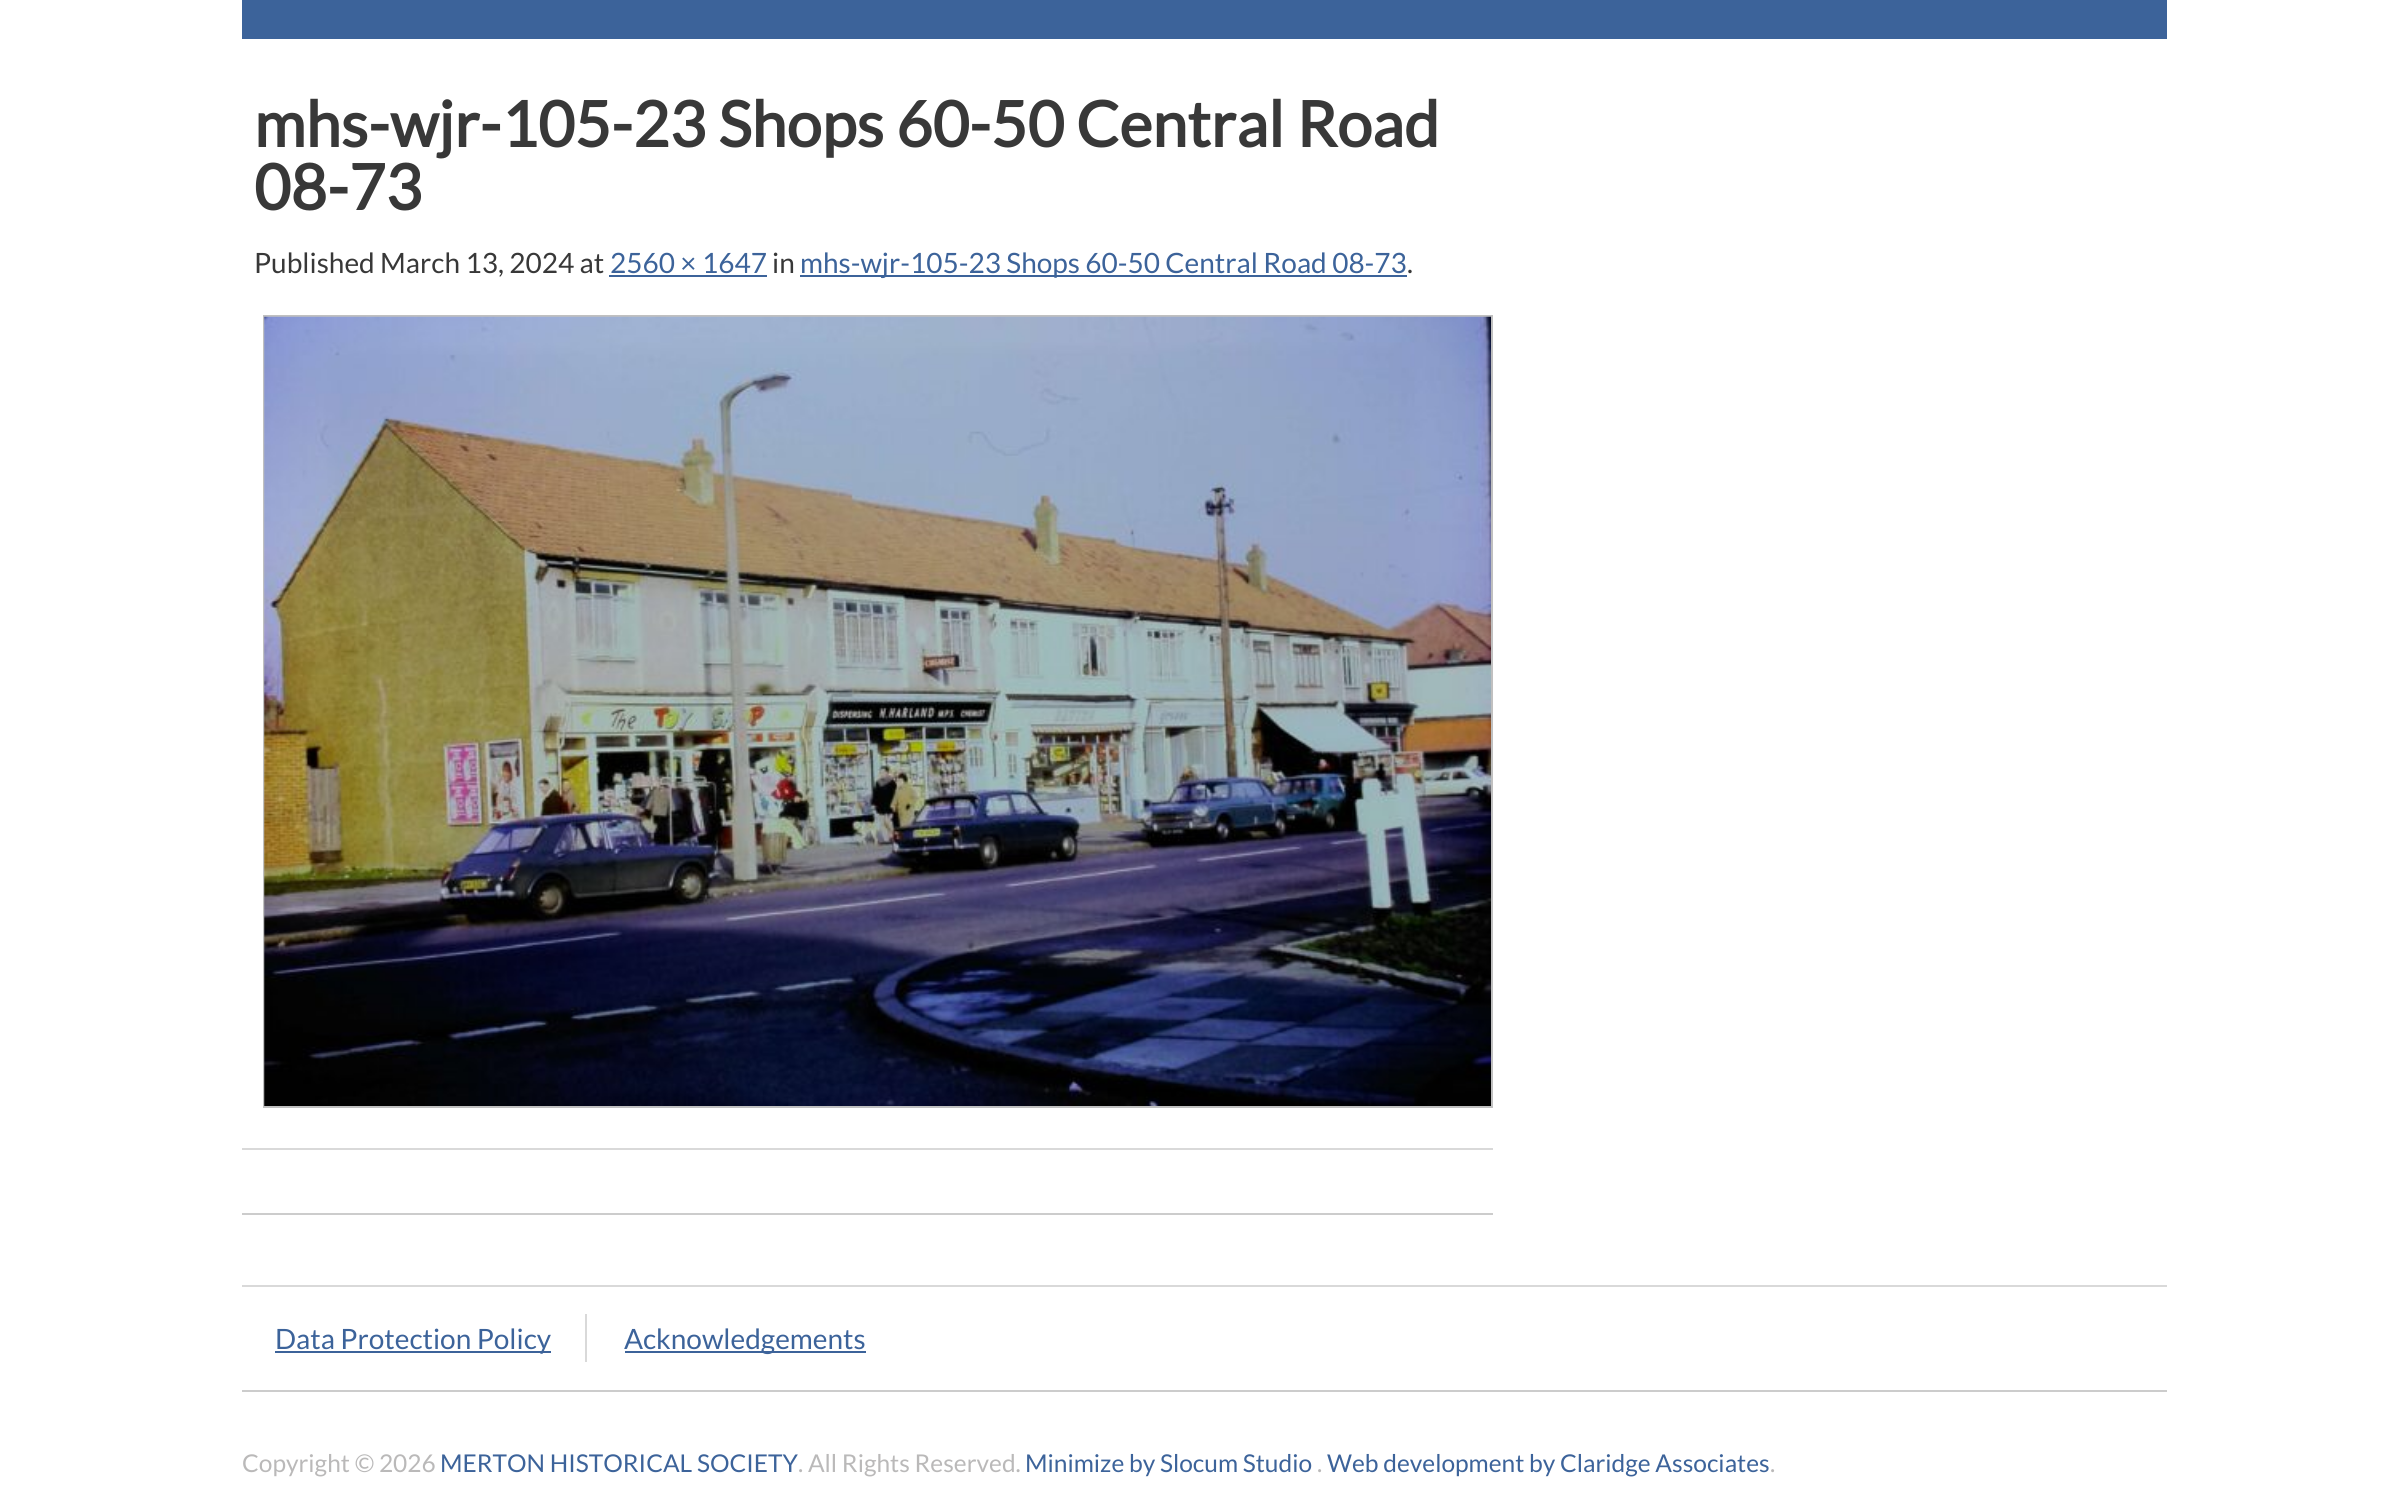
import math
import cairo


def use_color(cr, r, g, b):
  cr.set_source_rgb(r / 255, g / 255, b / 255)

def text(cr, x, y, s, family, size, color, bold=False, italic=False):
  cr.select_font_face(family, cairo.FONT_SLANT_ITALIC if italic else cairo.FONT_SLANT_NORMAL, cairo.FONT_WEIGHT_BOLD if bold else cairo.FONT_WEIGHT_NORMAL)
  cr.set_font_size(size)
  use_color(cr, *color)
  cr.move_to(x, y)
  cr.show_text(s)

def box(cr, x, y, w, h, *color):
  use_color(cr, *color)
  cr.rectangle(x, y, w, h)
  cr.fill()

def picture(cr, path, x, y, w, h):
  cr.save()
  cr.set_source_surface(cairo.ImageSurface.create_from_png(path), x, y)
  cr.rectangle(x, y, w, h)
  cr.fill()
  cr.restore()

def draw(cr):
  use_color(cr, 255, 255, 255)
  cr.paint()
  box(cr, 242, 0, 1925, 39, 60, 99, 154)
  box(cr, 242, 1148, 1251, 2, 217, 217, 217)
  box(cr, 609, 275, 158, 2, 60, 99, 154)
  box(cr, 800, 275, 607, 2, 60, 99, 154)
  cr.rectangle(264, 316, 1228, 791)
  use_color(cr, 192, 192, 192)
  cr.stroke()
  picture(cr, "img_01.png", 264, 316, 1227, 790)
  box(cr, 242, 1213, 1251, 2, 204, 204, 204)
  box(cr, 242, 1285, 1925, 2, 217, 217, 217)
  box(cr, 242, 1390, 1925, 2, 204, 204, 204)
  box(cr, 585, 1314, 2, 48, 217, 217, 217)
  box(cr, 275, 1351, 276, 2, 60, 99, 154)
  box(cr, 625, 1351, 241, 2, 60, 99, 154)
  text(cr, 254, 147, "mhs-wjr-105-23 Shops 60-50 Central Road", "Lato", 63, (56, 56, 56), bold=True)
  text(cr, 254, 210, "08-73", "Lato", 63, (56, 56, 56), bold=True)
  text(cr, 254, 273, "Published March 13, 2024 at", "Lato", 28, (56, 56, 56))
  text(cr, 610, 273, "2560 × 1647", "Lato", 28, (60, 99, 154))
  text(cr, 772, 273, "in", "Lato", 28, (56, 56, 56))
  text(cr, 800, 273, "mhs-wjr-105-23 Shops 60-50 Central Road 08-73", "Lato", 28, (60, 99, 154))
  text(cr, 1407, 273, ".", "Lato", 28, (56, 56, 56))
  text(cr, 275, 1349, "Data Protection Policy", "Lato", 28, (60, 99, 154))
  text(cr, 624, 1349, "Acknowledgements", "Lato", 28, (60, 99, 154))
  text(cr, 242, 1472, "Copyright © 2026", "Lato", 24.5, (186, 185, 185))
  text(cr, 440, 1472, "MERTON HISTORICAL SOCIETY", "Lato", 24.5, (60, 99, 154))
  text(cr, 798, 1472, ". All Rights Reserved.", "Lato", 24.5, (186, 185, 185))
  text(cr, 1025, 1472, "Minimize by Slocum Studio", "Lato", 24.5, (60, 99, 154))
  text(cr, 1317, 1472, ".", "Lato", 24.5, (186, 185, 185))
  text(cr, 1327, 1472, "Web development by Claridge Associates", "Lato", 24.5, (60, 99, 154))
  text(cr, 1770, 1472, ".", "Lato", 24.5, (186, 185, 185))


surface = cairo.ImageSurface(cairo.FORMAT_RGB24, 2407, 1511)
cr = cairo.Context(surface)
options = cairo.FontOptions()
options.set_hint_metrics(cairo.HINT_METRICS_OFF)
options.set_hint_style(cairo.HINT_STYLE_NONE)
cr.set_font_options(options)
cr.set_miter_limit(4)
draw(cr)
surface.write_to_png("out.png")
